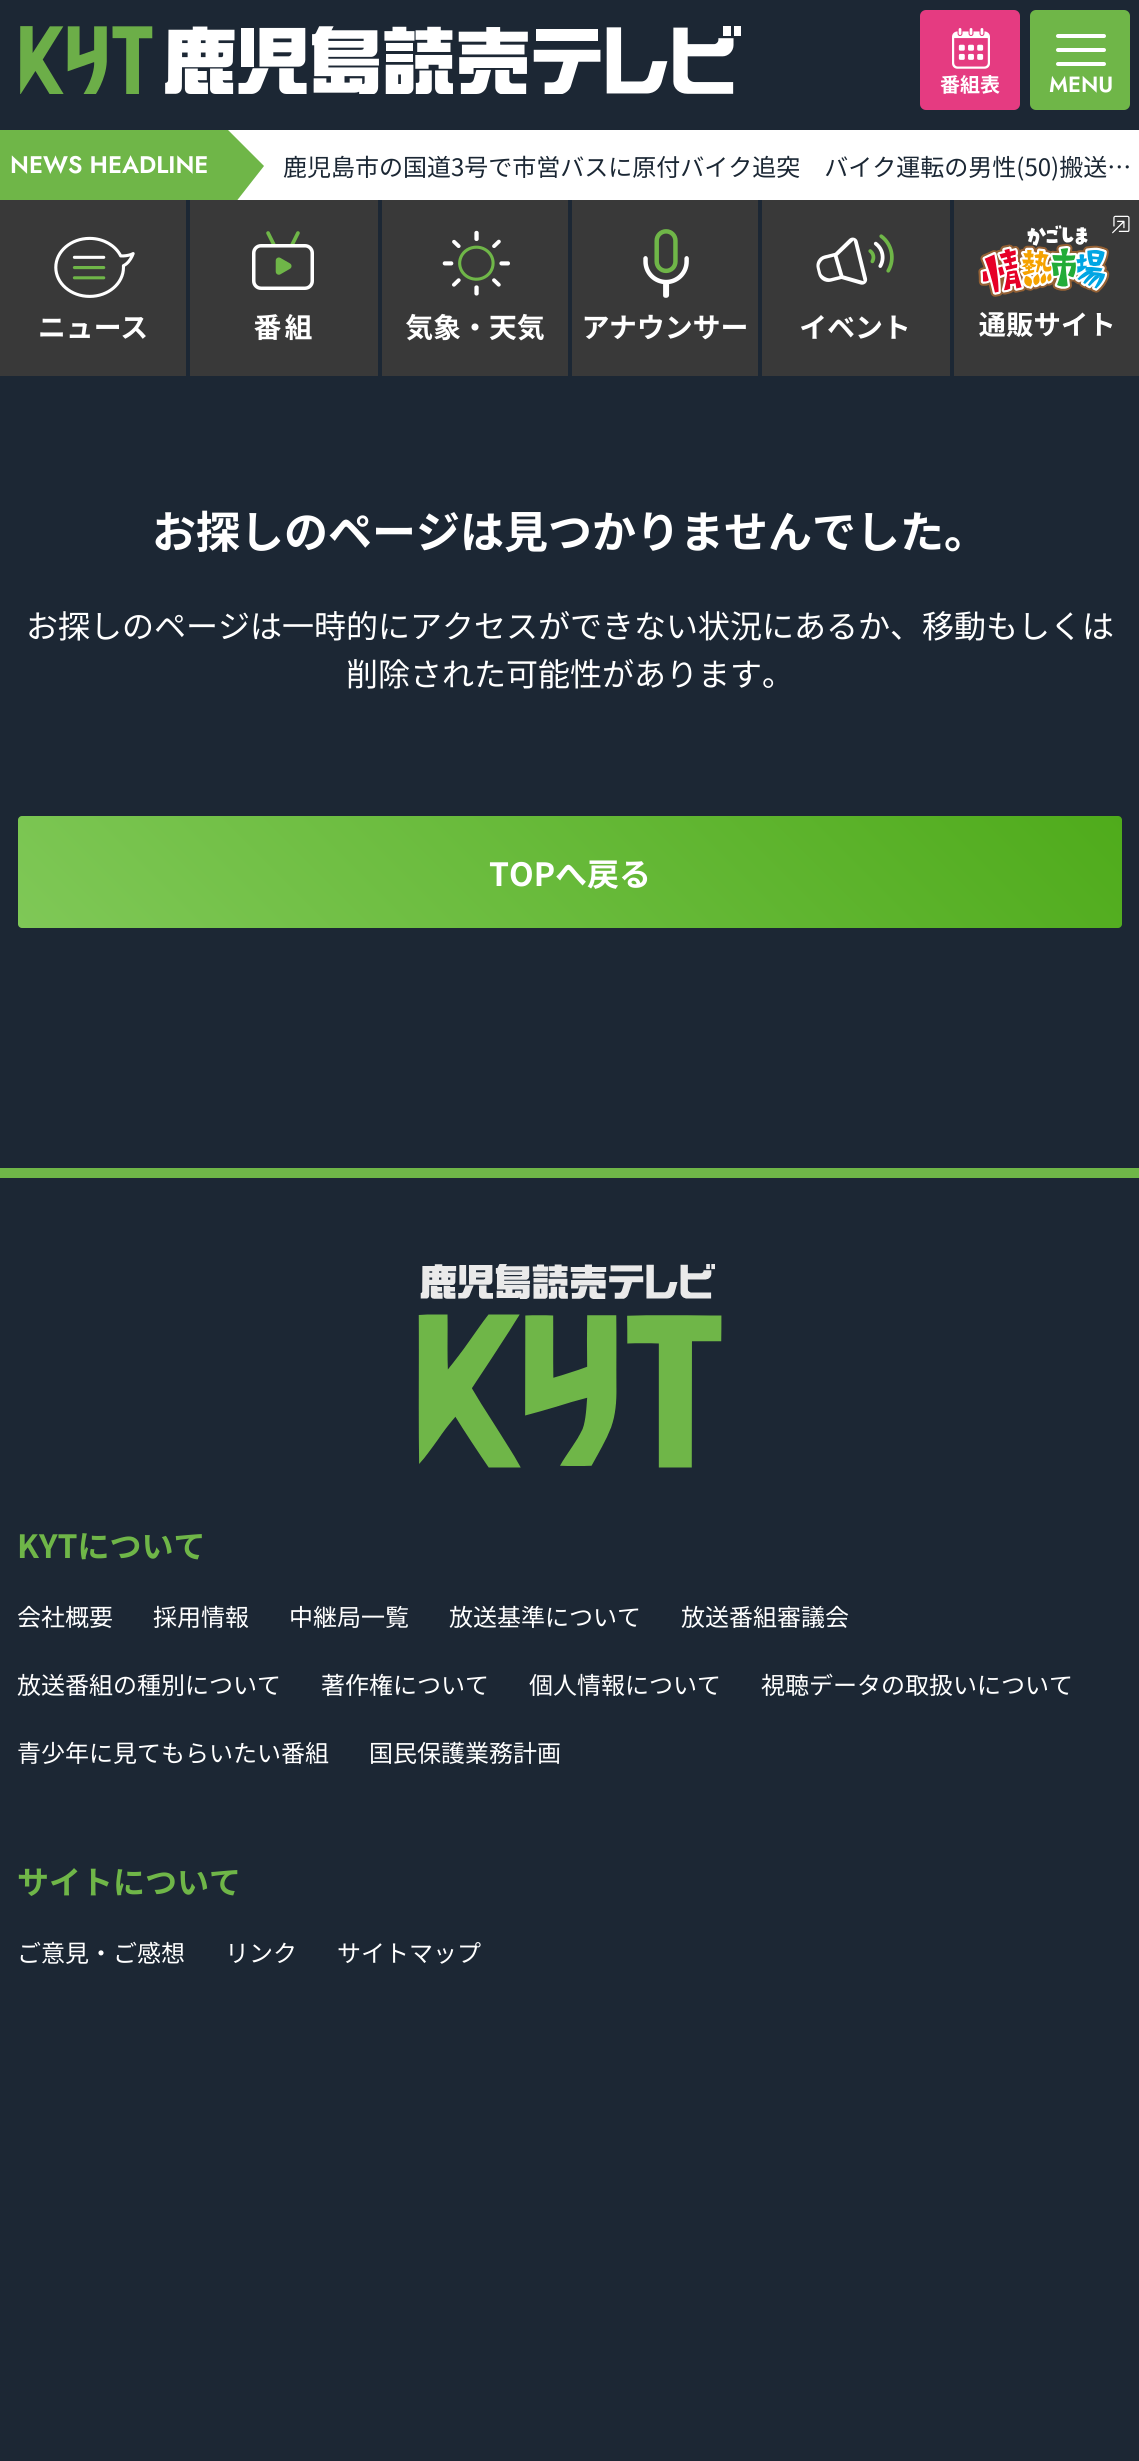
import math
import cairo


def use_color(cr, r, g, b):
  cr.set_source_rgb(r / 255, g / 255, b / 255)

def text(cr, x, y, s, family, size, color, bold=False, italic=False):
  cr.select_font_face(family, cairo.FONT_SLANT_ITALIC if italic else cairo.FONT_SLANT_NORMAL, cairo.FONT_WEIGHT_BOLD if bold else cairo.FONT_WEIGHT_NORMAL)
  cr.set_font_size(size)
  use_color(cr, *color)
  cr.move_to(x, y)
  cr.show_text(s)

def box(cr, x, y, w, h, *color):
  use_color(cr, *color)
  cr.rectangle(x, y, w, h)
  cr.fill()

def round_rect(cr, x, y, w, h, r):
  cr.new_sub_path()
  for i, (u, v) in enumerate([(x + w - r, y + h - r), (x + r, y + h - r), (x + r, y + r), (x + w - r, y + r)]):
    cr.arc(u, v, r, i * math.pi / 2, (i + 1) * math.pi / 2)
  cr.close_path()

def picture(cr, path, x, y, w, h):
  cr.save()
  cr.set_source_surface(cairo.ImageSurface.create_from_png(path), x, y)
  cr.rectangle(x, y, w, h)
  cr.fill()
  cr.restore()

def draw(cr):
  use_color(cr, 28, 39, 52)
  cr.paint()
  picture(cr, "img_01.png", 20, 26, 721, 68)
  use_color(cr, 229, 59, 129)
  round_rect(cr, 920, 10, 100, 100, 6)
  cr.fill()
  picture(cr, "img_02.png", 952, 28, 38, 41)
  use_color(cr, 111, 182, 72)
  round_rect(cr, 1030, 10, 100, 100, 6)
  cr.fill()
  use_color(cr, 255, 255, 255)
  round_rect(cr, 1056, 34, 50, 4, 2)
  cr.fill()
  round_rect(cr, 1056, 48, 50, 4, 2)
  cr.fill()
  round_rect(cr, 1056, 62, 50, 4, 2)
  cr.fill()
  box(cr, 228, 130, 911, 70, 255, 255, 255)
  box(cr, 0, 130, 228, 70, 111, 182, 72)
  cr.new_path()
  cr.move_to(228, 212)
  cr.line_to(228, 130)
  cr.line_to(264, 166)
  cr.close_path()
  cr.fill()
  box(cr, 0, 200, 186, 176, 57, 57, 57)
  picture(cr, "img_03.png", 40, 236, 106, 103)
  box(cr, 190, 200, 188, 176, 57, 57, 57)
  picture(cr, "img_04.png", 252, 231, 62, 110)
  box(cr, 382, 200, 186, 176, 57, 57, 57)
  picture(cr, "img_05.png", 406, 230, 138, 111)
  box(cr, 572, 200, 186, 176, 57, 57, 57)
  picture(cr, "img_06.png", 584, 229, 162, 111)
  box(cr, 762, 200, 188, 176, 57, 57, 57)
  picture(cr, "img_07.png", 801, 234, 107, 105)
  box(cr, 954, 200, 185, 176, 57, 57, 57)
  picture(cr, "img_08.png", 978, 215, 152, 123)
  gradient = cairo.LinearGradient(266, 1176, 874, 568)
  gradient.add_color_stop_rgba(0, 0.498, 0.784, 0.341, 1)
  gradient.add_color_stop_rgba(1, 0.31, 0.671, 0.106, 1)
  cr.set_source(gradient)
  round_rect(cr, 18, 816, 1104, 112, 4)
  cr.fill()
  box(cr, 0, 1168, 1139, 10, 111, 182, 72)
  picture(cr, "img_09.png", 418, 1264, 304, 204)
  text(cr, 940, 92, "番組表", "Noto Sans JP", 20, (255, 255, 255), bold=True)
  text(cr, 1049, 92, "MENU", "Jost SemiBold", 22, (255, 255, 255))
  text(cr, 10, 173, "NEWS HEADLINE", "Jost SemiBold", 24, (255, 255, 255))
  text(cr, 283, 176, "鹿児島市の国道3号で市営バスに原付バイク追突　バイク運転の男性(50)搬送…", "Noto Sans JP", 24, (27, 39, 52))
  text(cr, 152, 548, "お探しのページは見つかりませんでした。", "Noto Sans JP", 44, (255, 255, 255), bold=True)
  text(cr, 26, 638, "お探しのページは一時的にアクセスができない状況にあるか、移動もしくは", "Noto Sans JP", 32, (255, 255, 255))
  text(cr, 346, 686, "削除された可能性があります。", "Noto Sans JP", 32, (255, 255, 255))
  text(cr, 489, 886, "TOPへ戻る", "Noto Sans JP", 32, (255, 255, 255), bold=True)
  text(cr, 17, 1558, "KYTについて", "Noto Sans JP", 32, (111, 182, 72), bold=True)
  text(cr, 17, 1626, "会社概要", "Noto Sans JP", 24, (255, 255, 255))
  text(cr, 153, 1626, "採用情報", "Noto Sans JP", 24, (255, 255, 255))
  text(cr, 289, 1626, "中継局一覧", "Noto Sans JP", 24, (255, 255, 255))
  text(cr, 449, 1626, "放送基準について", "Noto Sans JP", 24, (255, 255, 255))
  text(cr, 681, 1626, "放送番組審議会", "Noto Sans JP", 24, (255, 255, 255))
  text(cr, 17, 1694, "放送番組の種別について", "Noto Sans JP", 24, (255, 255, 255))
  text(cr, 321, 1694, "著作権について", "Noto Sans JP", 24, (255, 255, 255))
  text(cr, 529, 1694, "個人情報について", "Noto Sans JP", 24, (255, 255, 255))
  text(cr, 761, 1694, "視聴データの取扱いについて", "Noto Sans JP", 24, (255, 255, 255))
  text(cr, 17, 1762, "青少年に見てもらいたい番組", "Noto Sans JP", 24, (255, 255, 255))
  text(cr, 369, 1762, "国民保護業務計画", "Noto Sans JP", 24, (255, 255, 255))
  text(cr, 17, 1894, "サイトについて", "Noto Sans JP", 32, (111, 182, 72), bold=True)
  text(cr, 17, 1962, "ご意見・ご感想", "Noto Sans JP", 24, (255, 255, 255))
  text(cr, 225, 1962, "リンク", "Noto Sans JP", 24, (255, 255, 255))
  text(cr, 337, 1962, "サイトマップ", "Noto Sans JP", 24, (255, 255, 255))


surface = cairo.ImageSurface(cairo.FORMAT_RGB24, 1139, 2461)
cr = cairo.Context(surface)
options = cairo.FontOptions()
options.set_hint_metrics(cairo.HINT_METRICS_OFF)
options.set_hint_style(cairo.HINT_STYLE_NONE)
cr.set_font_options(options)
cr.set_miter_limit(4)
draw(cr)
surface.write_to_png("out.png")
